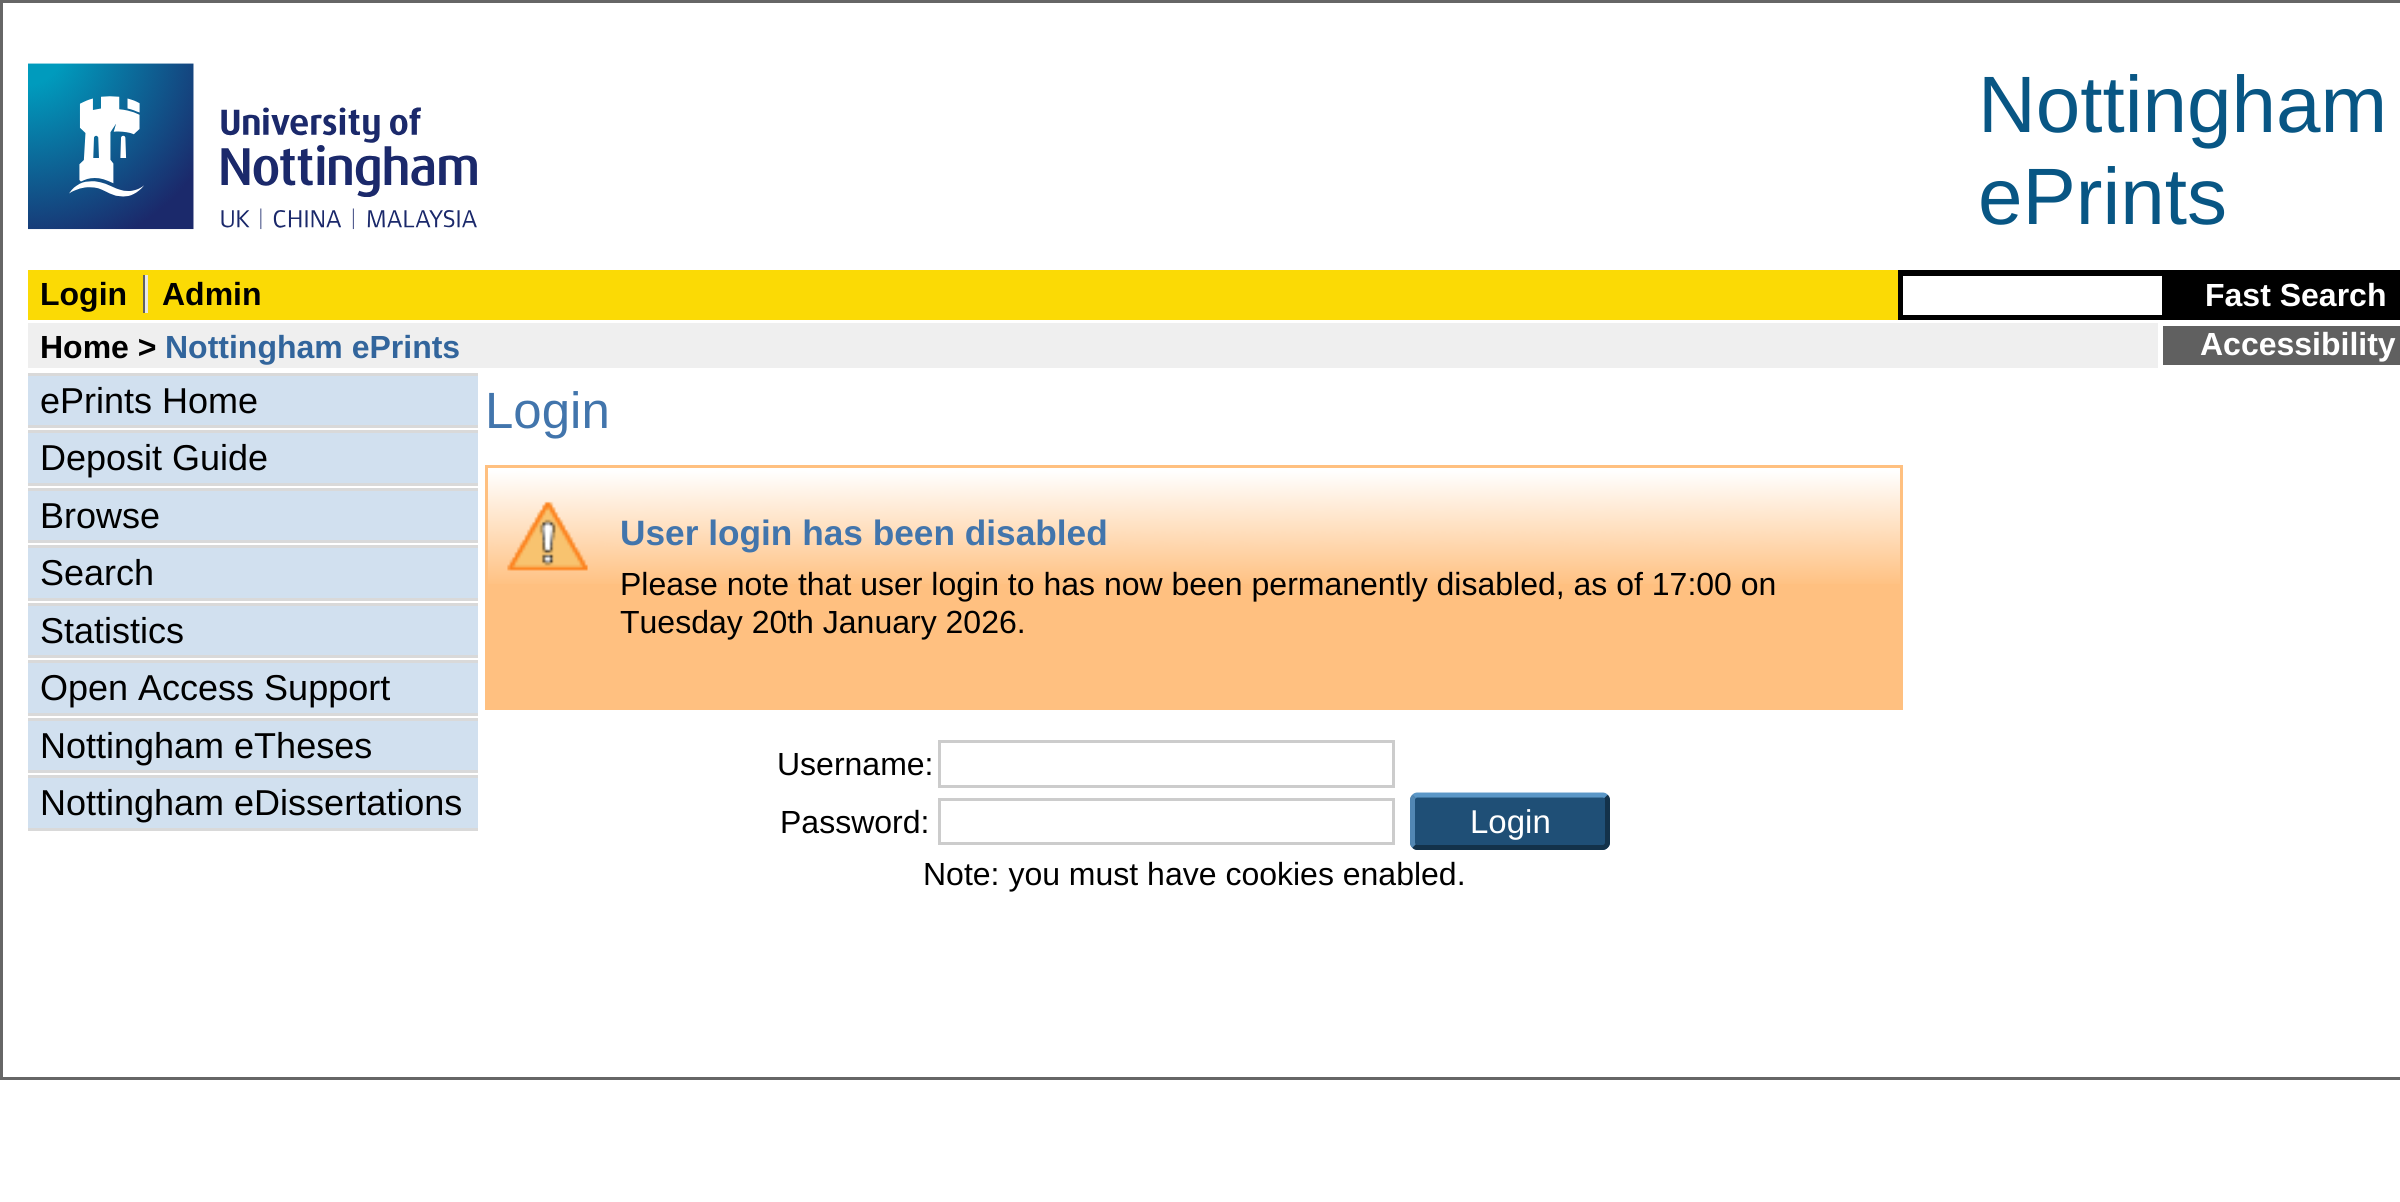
import math
import cairo


def use_color(cr, r, g, b):
  cr.set_source_rgb(r / 255, g / 255, b / 255)

def text(cr, x, y, s, family, size, color, bold=False, italic=False):
  cr.select_font_face(family, cairo.FONT_SLANT_ITALIC if italic else cairo.FONT_SLANT_NORMAL, cairo.FONT_WEIGHT_BOLD if bold else cairo.FONT_WEIGHT_NORMAL)
  cr.set_font_size(size)
  use_color(cr, *color)
  cr.move_to(x, y)
  cr.show_text(s)

def box(cr, x, y, w, h, *color):
  use_color(cr, *color)
  cr.rectangle(x, y, w, h)
  cr.fill()

def round_rect(cr, x, y, w, h, r):
  cr.new_sub_path()
  for i, (u, v) in enumerate([(x + w - r, y + h - r), (x + r, y + h - r), (x + r, y + r), (x + w - r, y + r)]):
    cr.arc(u, v, r, i * math.pi / 2, (i + 1) * math.pi / 2)
  cr.close_path()

def picture(cr, path, x, y, w, h):
  cr.save()
  cr.set_source_surface(cairo.ImageSurface.create_from_png(path), x, y)
  cr.rectangle(x, y, w, h)
  cr.fill()
  cr.restore()

def draw(cr):
  use_color(cr, 255, 255, 255)
  cr.paint()
  cr.rectangle(1.5, 1.5, 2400, 1077)
  use_color(cr, 102, 102, 102)
  cr.set_line_width(3)
  cr.stroke()
  picture(cr, "img_01.png", 28, 63, 449, 167)
  box(cr, 28, 270, 1870, 50, 251, 218, 5)
  box(cr, 143, 275, 2, 38, 96, 96, 96)
  box(cr, 145, 275, 3, 38, 232, 232, 232)
  box(cr, 1898, 270, 502, 50, 0, 0, 0)
  box(cr, 1903, 276, 259, 39, 255, 255, 255)
  box(cr, 28, 323, 2130, 45, 239, 239, 239)
  box(cr, 2163, 326, 237, 39, 96, 96, 96)
  box(cr, 28, 376, 450, 49, 209, 224, 239)
  box(cr, 28, 373, 450, 3, 217, 217, 217)
  box(cr, 28, 425, 450, 3, 217, 217, 217)
  box(cr, 28, 433, 450, 50, 209, 224, 239)
  box(cr, 28, 430, 450, 3, 217, 217, 217)
  box(cr, 28, 483, 450, 3, 217, 217, 217)
  box(cr, 28, 491, 450, 49, 209, 224, 239)
  box(cr, 28, 488, 450, 3, 217, 217, 217)
  box(cr, 28, 540, 450, 3, 217, 217, 217)
  box(cr, 28, 548, 450, 50, 209, 224, 239)
  box(cr, 28, 545, 450, 3, 217, 217, 217)
  box(cr, 28, 598, 450, 3, 217, 217, 217)
  box(cr, 28, 606, 450, 49, 209, 224, 239)
  box(cr, 28, 603, 450, 3, 217, 217, 217)
  box(cr, 28, 655, 450, 3, 217, 217, 217)
  box(cr, 28, 663, 450, 50, 209, 224, 239)
  box(cr, 28, 660, 450, 3, 217, 217, 217)
  box(cr, 28, 713, 450, 3, 217, 217, 217)
  box(cr, 28, 721, 450, 49, 209, 224, 239)
  box(cr, 28, 718, 450, 3, 217, 217, 217)
  box(cr, 28, 770, 450, 3, 217, 217, 217)
  box(cr, 28, 778, 450, 50, 209, 224, 239)
  box(cr, 28, 775, 450, 3, 217, 217, 217)
  box(cr, 28, 828, 450, 3, 217, 217, 217)
  box(cr, 488, 470, 1412, 237, 255, 192, 128)
  picture(cr, "img_02.png", 488, 468, 1412, 116)
  cr.rectangle(486.5, 466.5, 1415, 242)
  cr.stroke()
  picture(cr, "img_03.png", 507, 501, 81, 70)
  cr.rectangle(939.5, 741.5, 454, 45)
  use_color(cr, 204, 204, 204)
  cr.stroke()
  cr.rectangle(939.5, 799.5, 454, 44)
  cr.stroke()
  use_color(cr, 31, 79, 118)
  round_rect(cr, 1410, 793, 200, 57, 8)
  cr.fill()
  cr.new_path()
  cr.move_to(1414, 796.5)
  cr.curve_to(1415, 795.5, 1416, 795, 1417.5, 795)
  cr.line_to(1602.5, 795)
  cr.curve_to(1604, 795, 1605, 795.5, 1606, 796.5)
  use_color(cr, 91, 151, 199)
  cr.set_line_width(5)
  cr.stroke()
  cr.new_path()
  cr.move_to(1606, 796.5)
  cr.curve_to(1607, 797.5, 1607.5, 798.5, 1607.5, 800)
  cr.line_to(1607.5, 842.5)
  cr.curve_to(1607.5, 844, 1607, 845, 1606, 846)
  cr.curve_to(1605, 847, 1604, 847.5, 1602.5, 847.5)
  cr.line_to(1417.5, 847.5)
  cr.curve_to(1416, 847.5, 1415, 847, 1414, 846)
  use_color(cr, 19, 50, 74)
  cr.stroke()
  cr.new_path()
  cr.move_to(1414, 846)
  cr.curve_to(1413, 845, 1412.5, 844, 1412.5, 842.5)
  cr.line_to(1412.5, 800)
  cr.curve_to(1412.5, 798.5, 1413, 797.5, 1414, 796.5)
  use_color(cr, 82, 135, 179)
  cr.stroke()
  text(cr, 1978, 132, "Nottingham", "Liberation Sans", 80, (8, 86, 132))
  text(cr, 1978, 224, "ePrints", "Liberation Sans", 80, (8, 86, 132))
  text(cr, 40, 305, "Login", "Liberation Sans", 32, (0, 0, 0), bold=True)
  text(cr, 162, 305, "Admin", "Liberation Sans", 32, (0, 0, 0), bold=True)
  text(cr, 2205, 306, "Fast Search", "Liberation Sans", 32, (255, 255, 255), bold=True)
  text(cr, 40, 358, "Home >", "Liberation Sans", 32, (0, 0, 0), bold=True)
  text(cr, 165, 358, "Nottingham ePrints", "Liberation Sans", 32, (50, 101, 156), bold=True)
  text(cr, 2200, 355, "Accessibility", "Liberation Sans", 32, (255, 255, 255), bold=True)
  text(cr, 40, 413, "ePrints Home", "Liberation Sans", 36, (0, 0, 0))
  text(cr, 40, 470, "Deposit Guide", "Liberation Sans", 36, (0, 0, 0))
  text(cr, 40, 528, "Browse", "Liberation Sans", 36, (0, 0, 0))
  text(cr, 40, 585, "Search", "Liberation Sans", 36, (0, 0, 0))
  text(cr, 40, 643, "Statistics", "Liberation Sans", 36, (0, 0, 0))
  text(cr, 40, 700, "Open Access Support", "Liberation Sans", 36, (0, 0, 0))
  text(cr, 40, 758, "Nottingham eTheses", "Liberation Sans", 36, (0, 0, 0))
  text(cr, 40, 815, "Nottingham eDissertations", "Liberation Sans", 36, (0, 0, 0))
  text(cr, 485, 428, "Login", "Liberation Sans", 51, (66, 117, 172))
  text(cr, 620, 545, "User login has been disabled", "Liberation Sans", 35.25, (66, 117, 172), bold=True)
  text(cr, 620, 595, "Please note that user login to has now been permanently disabled, as of 17:00 on", "Liberation Sans", 32, (0, 0, 0))
  text(cr, 620, 633, "Tuesday 20th January 2026.", "Liberation Sans", 32, (0, 0, 0))
  text(cr, 777, 775, "Username:", "Liberation Sans", 32, (0, 0, 0))
  text(cr, 780, 833, "Password:", "Liberation Sans", 32, (0, 0, 0))
  text(cr, 1470, 833, "Login", "Liberation Sans", 33, (255, 255, 255))
  text(cr, 923, 885, "Note: you must have cookies enabled.", "Liberation Sans", 32, (0, 0, 0))


surface = cairo.ImageSurface(cairo.FORMAT_RGB24, 2400, 1202)
cr = cairo.Context(surface)
options = cairo.FontOptions()
options.set_hint_metrics(cairo.HINT_METRICS_OFF)
options.set_hint_style(cairo.HINT_STYLE_NONE)
cr.set_font_options(options)
cr.set_miter_limit(4)
draw(cr)
surface.write_to_png("out.png")
